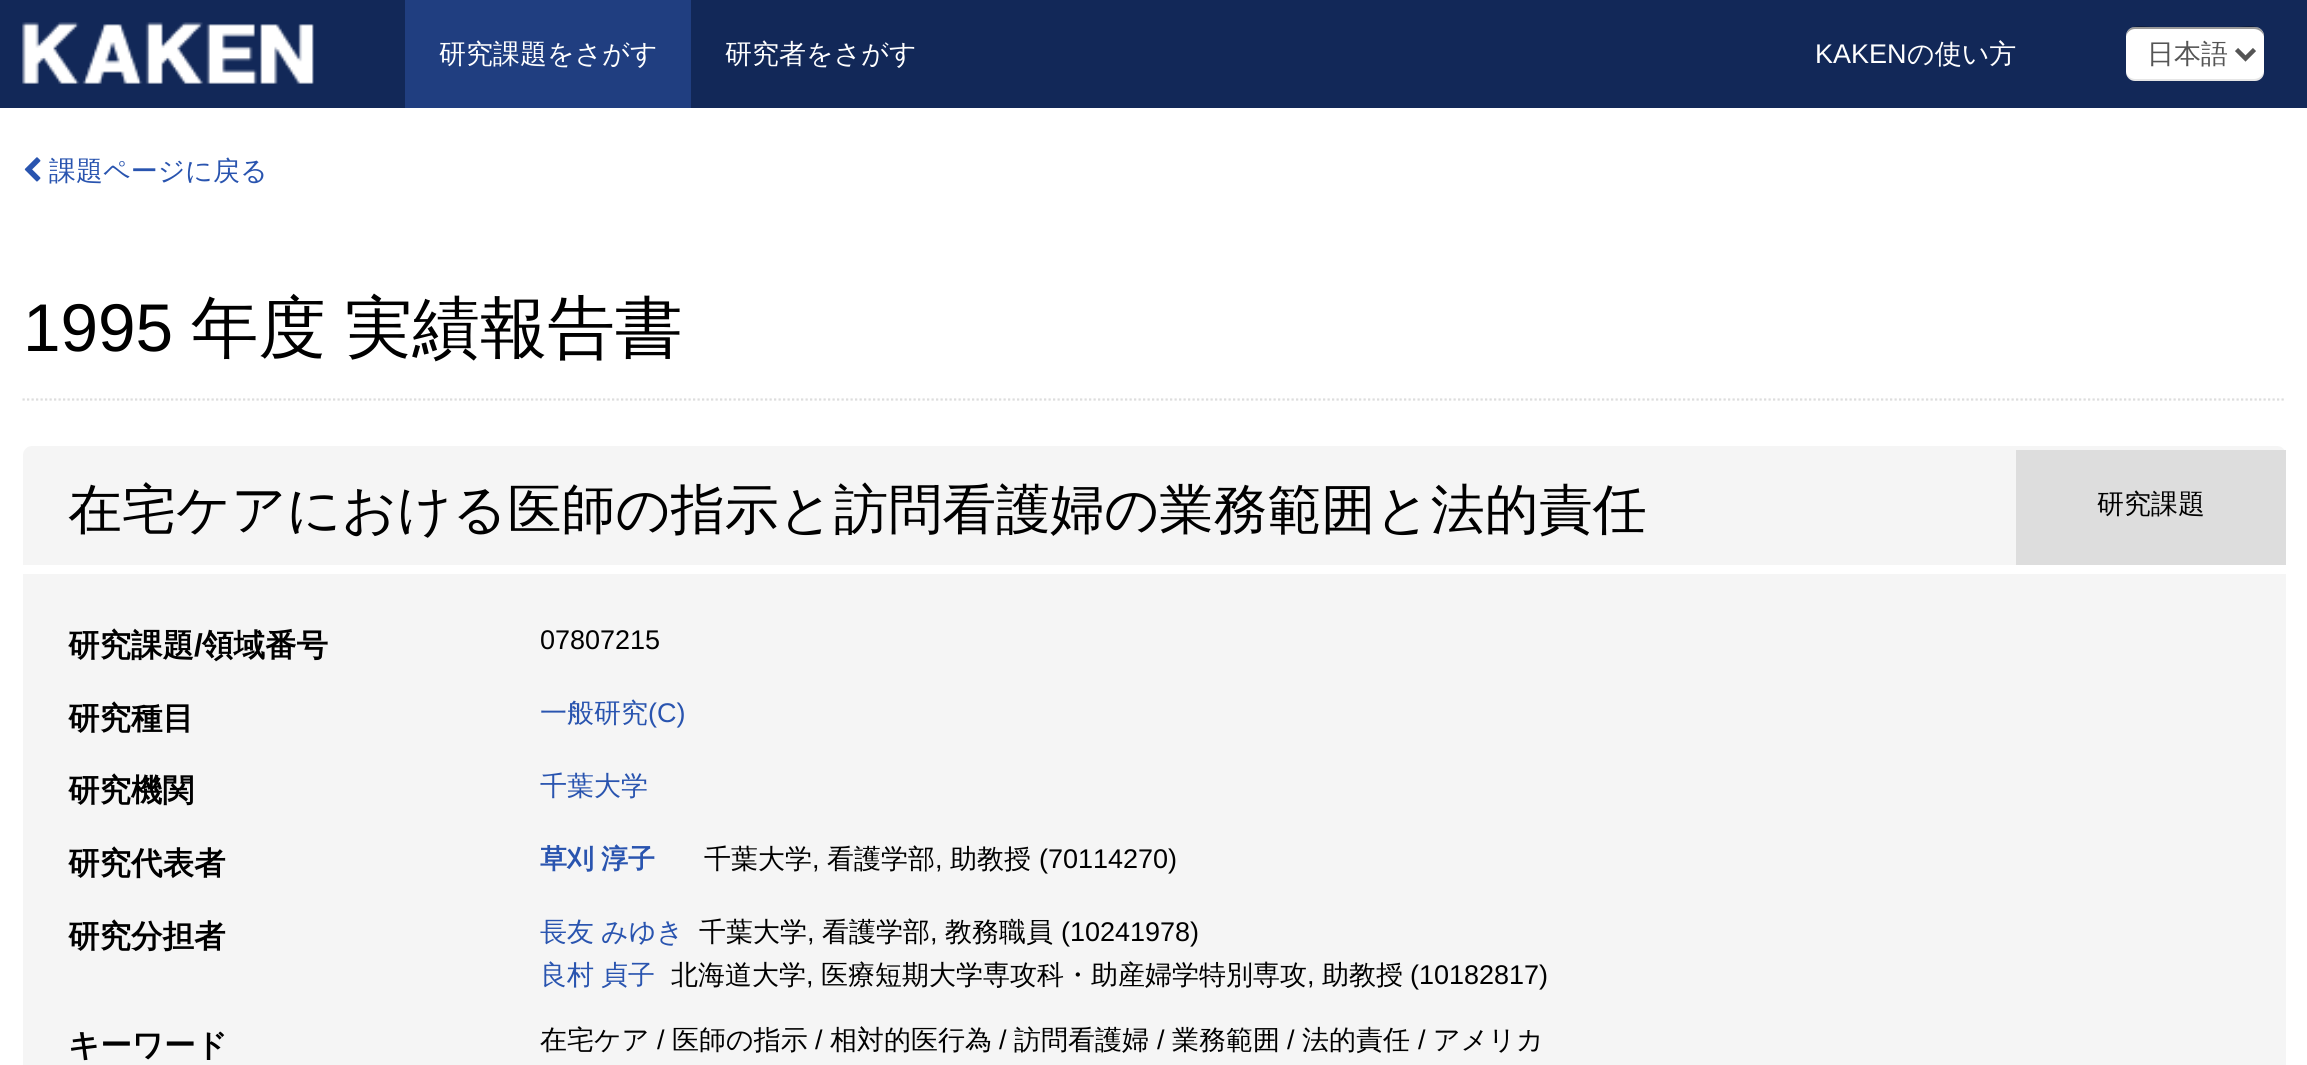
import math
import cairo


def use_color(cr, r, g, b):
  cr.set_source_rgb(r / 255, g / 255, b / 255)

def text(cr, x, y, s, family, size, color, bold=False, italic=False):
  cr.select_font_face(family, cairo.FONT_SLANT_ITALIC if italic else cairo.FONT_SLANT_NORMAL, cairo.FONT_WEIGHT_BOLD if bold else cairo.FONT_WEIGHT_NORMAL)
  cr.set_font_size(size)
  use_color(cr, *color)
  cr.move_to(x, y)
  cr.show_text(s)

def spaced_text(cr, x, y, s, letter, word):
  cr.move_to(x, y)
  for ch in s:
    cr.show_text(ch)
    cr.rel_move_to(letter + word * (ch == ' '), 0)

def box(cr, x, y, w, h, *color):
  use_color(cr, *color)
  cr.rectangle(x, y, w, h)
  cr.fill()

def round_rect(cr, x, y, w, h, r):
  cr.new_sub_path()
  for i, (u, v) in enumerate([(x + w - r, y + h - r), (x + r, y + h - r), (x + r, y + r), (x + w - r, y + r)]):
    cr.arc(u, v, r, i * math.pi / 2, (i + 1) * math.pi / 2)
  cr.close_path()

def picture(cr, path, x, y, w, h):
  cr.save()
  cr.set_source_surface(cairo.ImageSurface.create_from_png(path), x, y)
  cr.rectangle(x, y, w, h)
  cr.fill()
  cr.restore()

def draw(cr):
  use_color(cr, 255, 255, 255)
  cr.paint()
  box(cr, 0, 0, 2307, 108, 18, 40, 88)
  picture(cr, "img_01.png", 22, 22, 292, 62)
  box(cr, 405, 0, 286, 108, 32, 62, 128)
  use_color(cr, 255, 255, 255)
  round_rect(cr, 2126, 27, 138, 54, 9)
  cr.fill()
  cr.set_source_rgba(0, 0, 0, 0.1)
  cr.new_path()
  cr.move_to(2126, 70)
  cr.curve_to(2126, 86, 2144, 81, 2155, 81)
  cr.line_to(2235, 81)
  cr.curve_to(2246, 81, 2264, 86, 2264, 70)
  cr.curve_to(2264, 75, 2259, 79, 2254, 79)
  cr.line_to(2135, 79)
  cr.curve_to(2130, 79, 2126, 75, 2126, 70)
  cr.close_path()
  cr.fill()
  cr.set_source_rgba(0, 0, 0, 0.4)
  cr.new_path()
  cr.move_to(2135, 29)
  cr.line_to(2254, 29)
  cr.curve_to(2259, 29, 2264, 33, 2264, 38)
  cr.curve_to(2264, 22, 2246, 27, 2235, 27)
  cr.line_to(2155, 27)
  cr.curve_to(2144, 27, 2126, 22, 2126, 38)
  cr.curve_to(2126, 33, 2130, 29, 2135, 29)
  cr.close_path()
  cr.fill()
  cr.new_path()
  cr.move_to(2236.5, 49.5)
  cr.line_to(2245.5, 58.5)
  cr.line_to(2254.5, 49.5)
  use_color(cr, 85, 85, 85)
  cr.set_line_width(4.5)
  cr.stroke()
  picture(cr, "img_02.png", 24, 157, 17, 25)
  cr.new_path()
  cr.move_to(22.5, 399.5)
  cr.line_to(2286, 399.5)
  use_color(cr, 221, 221, 221)
  cr.set_line_width(2.2)
  cr.set_dash([2.25, 2.25])
  cr.stroke()
  use_color(cr, 245, 245, 245)
  round_rect(cr, 23, 446, 2263, 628, 9)
  cr.fill()
  box(cr, 2016, 450, 270, 115, 221, 221, 221)
  box(cr, 23, 565, 2263, 9, 255, 255, 255)
  text(cr, 439, 63, "研究課題をさがす", "WenQuanYi Zen Hei Medium", 27, (255, 255, 255))
  text(cr, 725, 63, "研究者をさがす", "WenQuanYi Zen Hei Medium", 27, (255, 255, 255))
  text(cr, 1815, 63, "KAKEN", "Liberation Sans", 27, (255, 255, 255))
  text(cr, 1907, 63, "の使い方", "WenQuanYi Zen Hei Medium", 27, (255, 255, 255))
  text(cr, 2147, 63, "日本語", "WenQuanYi Zen Hei Medium", 27, (85, 85, 85))
  text(cr, 49, 180, "課題ページに戻る", "WenQuanYi Zen Hei Medium", 27, (41, 84, 175))
  text(cr, 23, 351, "1995", "Liberation Sans", 67.5, (0, 0, 0))
  text(cr, 191, 351, "年度", "WenQuanYi Zen Hei Medium", 67.5, (0, 0, 0))
  text(cr, 345, 351, "実績報告書", "WenQuanYi Zen Hei Medium", 67.5, (0, 0, 0))
  text(cr, 68, 528, "在宅ケアにおける医師の指示と訪問看護婦の業務範囲と法的責任", "WenQuanYi Zen Hei Medium", 54, (0, 0, 0))
  text(cr, 2097, 513, "研究課題", "WenQuanYi Zen Hei Medium", 27, (0, 0, 0))
  text(cr, 68, 656, "研究課題", "WenQuanYi Zen Hei", 31.5, (0, 0, 0), bold=True)
  text(cr, 194, 656, "/", "Liberation Sans", 31.5, (0, 0, 0), bold=True)
  text(cr, 202, 656, "領域番号", "WenQuanYi Zen Hei", 31.5, (0, 0, 0), bold=True)
  text(cr, 540, 649, "07807215", "Liberation Sans", 27, (0, 0, 0))
  text(cr, 68, 729, "研究種目", "WenQuanYi Zen Hei", 31.5, (0, 0, 0), bold=True)
  text(cr, 540, 722, "一般研究", "WenQuanYi Zen Hei Medium", 27, (41, 84, 175))
  text(cr, 648, 722, "(C)", "Liberation Sans", 27, (41, 84, 175))
  text(cr, 68, 801, "研究機関", "WenQuanYi Zen Hei", 31.5, (0, 0, 0), bold=True)
  text(cr, 540, 795, "千葉大学", "WenQuanYi Zen Hei Medium", 27, (41, 84, 175))
  text(cr, 68, 874, "研究代表者", "WenQuanYi Zen Hei", 31.5, (0, 0, 0), bold=True)
  cr.set_font_size(27)
  use_color(cr, 41, 84, 175)
  spaced_text(cr, 540, 868, "草刈 淳子", 0, -1)
  text(cr, 704, 868, "千葉大学", "WenQuanYi Zen Hei Medium", 27, (0, 0, 0))
  text(cr, 812, 868, ",", "Liberation Sans", 27, (0, 0, 0))
  text(cr, 827, 868, "看護学部", "WenQuanYi Zen Hei Medium", 27, (0, 0, 0))
  text(cr, 935, 868, ",", "Liberation Sans", 27, (0, 0, 0))
  text(cr, 950, 868, "助教授", "WenQuanYi Zen Hei Medium", 27, (0, 0, 0))
  text(cr, 1039, 868, "(70114270)", "Liberation Sans", 27, (0, 0, 0))
  text(cr, 68, 947, "研究分担者", "WenQuanYi Zen Hei", 31.5, (0, 0, 0), bold=True)
  cr.select_font_face("WenQuanYi Zen Hei Medium")
  cr.set_font_size(27)
  use_color(cr, 41, 84, 175)
  spaced_text(cr, 540, 941, "長友 みゆき", 0, -1)
  text(cr, 699, 941, "千葉大学", "WenQuanYi Zen Hei Medium", 27, (0, 0, 0))
  text(cr, 807, 941, ",", "Liberation Sans", 27, (0, 0, 0))
  text(cr, 822, 941, "看護学部", "WenQuanYi Zen Hei Medium", 27, (0, 0, 0))
  text(cr, 930, 941, ",", "Liberation Sans", 27, (0, 0, 0))
  text(cr, 945, 941, "教務職員", "WenQuanYi Zen Hei Medium", 27, (0, 0, 0))
  text(cr, 1061, 941, "(10241978)", "Liberation Sans", 27, (0, 0, 0))
  cr.select_font_face("WenQuanYi Zen Hei Medium")
  use_color(cr, 41, 84, 175)
  spaced_text(cr, 540, 984, "良村 貞子", 0, -1)
  text(cr, 671, 984, "北海道大学", "WenQuanYi Zen Hei Medium", 27, (0, 0, 0))
  text(cr, 806, 984, ",", "Liberation Sans", 27, (0, 0, 0))
  text(cr, 821, 984, "医療短期大学専攻科・助産婦学特別専攻", "WenQuanYi Zen Hei Medium", 27, (0, 0, 0))
  text(cr, 1307, 984, ",", "Liberation Sans", 27, (0, 0, 0))
  text(cr, 1322, 984, "助教授", "WenQuanYi Zen Hei Medium", 27, (0, 0, 0))
  text(cr, 1410, 984, "(10182817)", "Liberation Sans", 27, (0, 0, 0))
  text(cr, 68, 1056, "キーワード", "WenQuanYi Zen Hei", 31.5, (0, 0, 0), bold=True)
  text(cr, 540, 1049, "在宅ケア", "WenQuanYi Zen Hei Medium", 27, (0, 0, 0))
  text(cr, 657, 1049, "/", "Liberation Sans", 27, (0, 0, 0))
  text(cr, 672, 1049, "医師の指示", "WenQuanYi Zen Hei Medium", 27, (0, 0, 0))
  text(cr, 815, 1049, "/", "Liberation Sans", 27, (0, 0, 0))
  text(cr, 830, 1049, "相対的医行為", "WenQuanYi Zen Hei Medium", 27, (0, 0, 0))
  text(cr, 999, 1049, "/", "Liberation Sans", 27, (0, 0, 0))
  text(cr, 1014, 1049, "訪問看護婦", "WenQuanYi Zen Hei Medium", 27, (0, 0, 0))
  text(cr, 1157, 1049, "/", "Liberation Sans", 27, (0, 0, 0))
  text(cr, 1172, 1049, "業務範囲", "WenQuanYi Zen Hei Medium", 27, (0, 0, 0))
  text(cr, 1287, 1049, "/", "Liberation Sans", 27, (0, 0, 0))
  text(cr, 1302, 1049, "法的責任", "WenQuanYi Zen Hei Medium", 27, (0, 0, 0))
  text(cr, 1418, 1049, "/", "Liberation Sans", 27, (0, 0, 0))
  text(cr, 1433, 1049, "アメリカ", "WenQuanYi Zen Hei Medium", 27, (0, 0, 0))


surface = cairo.ImageSurface(cairo.FORMAT_RGB24, 2307, 1065)
cr = cairo.Context(surface)
options = cairo.FontOptions()
options.set_hint_metrics(cairo.HINT_METRICS_OFF)
options.set_hint_style(cairo.HINT_STYLE_NONE)
cr.set_font_options(options)
cr.set_miter_limit(4)
draw(cr)
surface.write_to_png("out.png")
